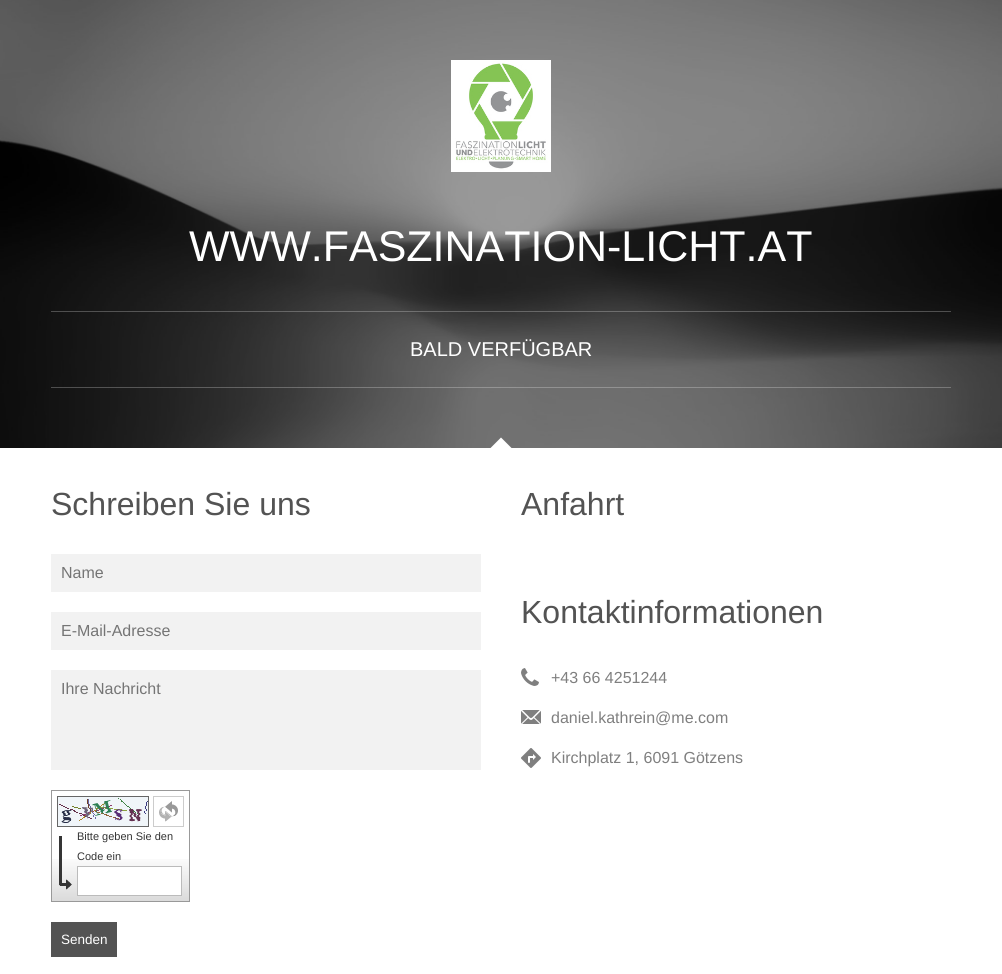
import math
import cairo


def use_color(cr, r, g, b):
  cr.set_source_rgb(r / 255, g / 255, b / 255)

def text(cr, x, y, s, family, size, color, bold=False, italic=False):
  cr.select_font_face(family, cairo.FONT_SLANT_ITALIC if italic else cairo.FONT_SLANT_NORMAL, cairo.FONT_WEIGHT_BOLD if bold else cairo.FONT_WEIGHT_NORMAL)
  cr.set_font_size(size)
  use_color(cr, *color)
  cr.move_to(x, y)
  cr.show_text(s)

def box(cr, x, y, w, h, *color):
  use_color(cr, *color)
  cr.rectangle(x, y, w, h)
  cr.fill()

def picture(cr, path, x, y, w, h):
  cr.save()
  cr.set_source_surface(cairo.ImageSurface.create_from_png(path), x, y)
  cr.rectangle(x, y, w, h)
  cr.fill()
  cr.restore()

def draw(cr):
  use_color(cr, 255, 255, 255)
  cr.paint()
  picture(cr, "img_01.png", 0, 0, 1002, 448)
  picture(cr, "img_02.png", 451, 60, 100, 112)
  cr.set_source_rgba(1, 1, 1, 0.25)
  cr.rectangle(51, 311, 900, 1)
  cr.fill()
  cr.rectangle(51, 387, 900, 1)
  cr.fill()
  use_color(cr, 255, 255, 255)
  cr.new_path()
  cr.move_to(501, 437.5)
  cr.line_to(515, 451.5)
  cr.line_to(501, 466)
  cr.line_to(487, 451.5)
  cr.close_path()
  cr.fill()
  box(cr, 51, 554, 430, 38, 242, 242, 242)
  box(cr, 51, 612, 430, 38, 242, 242, 242)
  box(cr, 51, 670, 430, 100, 242, 242, 242)
  picture(cr, "img_03.png", 52, 859, 137, 42)
  cr.rectangle(51.5, 790.5, 138, 111)
  use_color(cr, 153, 153, 153)
  cr.set_line_width(1)
  cr.stroke()
  cr.rectangle(57.5, 796.5, 91, 30)
  use_color(cr, 102, 102, 102)
  cr.stroke()
  picture(cr, "img_04.png", 58, 797, 90, 29)
  picture(cr, "img_05.png", 159, 801, 19, 21)
  cr.rectangle(153.5, 796.5, 30, 30)
  use_color(cr, 204, 204, 204)
  cr.stroke()
  picture(cr, "img_06.png", 59, 836, 13, 54)
  use_color(cr, 255, 255, 255)
  cr.rectangle(77.5, 866.5, 104, 29)
  cr.fill_preserve()
  use_color(cr, 187, 187, 187)
  cr.stroke()
  box(cr, 51, 922, 66, 35, 83, 83, 83)
  picture(cr, "img_07.png", 521, 668, 18, 18)
  picture(cr, "img_08.png", 521, 710, 20, 14)
  picture(cr, "img_09.png", 521, 748, 20, 20)
  text(cr, 189, 261, "WWW.FASZINATION-LICHT.AT", "Liberation Sans", 43, (255, 255, 255))
  text(cr, 410, 356, "BALD VERFÜGBAR", "Liberation Sans", 20, (255, 255, 255))
  text(cr, 51, 515, "Schreiben Sie uns", "Liberation Sans", 32, (83, 83, 83))
  text(cr, 61, 578, "Name", "Liberation Sans", 16, (117, 117, 117))
  text(cr, 61, 636, "E-Mail-Adresse", "Liberation Sans", 16, (117, 117, 117))
  text(cr, 61, 694, "Ihre Nachricht", "Liberation Sans", 16, (117, 117, 117))
  text(cr, 77, 840, "Bitte geben Sie den", "Liberation Sans", 11, (51, 51, 51))
  text(cr, 77, 860, "Code ein", "Liberation Sans", 11, (51, 51, 51))
  text(cr, 61, 944, "Senden", "Liberation Sans", 13.5, (255, 255, 255))
  text(cr, 521, 515, "Anfahrt", "Liberation Sans", 32, (83, 83, 83))
  text(cr, 521, 623, "Kontaktinformationen", "Liberation Sans", 32, (83, 83, 83))
  text(cr, 551, 683, "+43 66 4251244", "Liberation Sans", 16, (127, 127, 127))
  text(cr, 551, 723, "daniel.kathrein@me.com", "Liberation Sans", 16, (127, 127, 127))
  text(cr, 551, 763, "Kirchplatz 1, 6091 Götzens", "Liberation Sans", 16, (127, 127, 127))


surface = cairo.ImageSurface(cairo.FORMAT_RGB24, 1002, 974)
cr = cairo.Context(surface)
options = cairo.FontOptions()
options.set_hint_metrics(cairo.HINT_METRICS_OFF)
options.set_hint_style(cairo.HINT_STYLE_NONE)
cr.set_font_options(options)
cr.set_miter_limit(4)
draw(cr)
surface.write_to_png("out.png")
